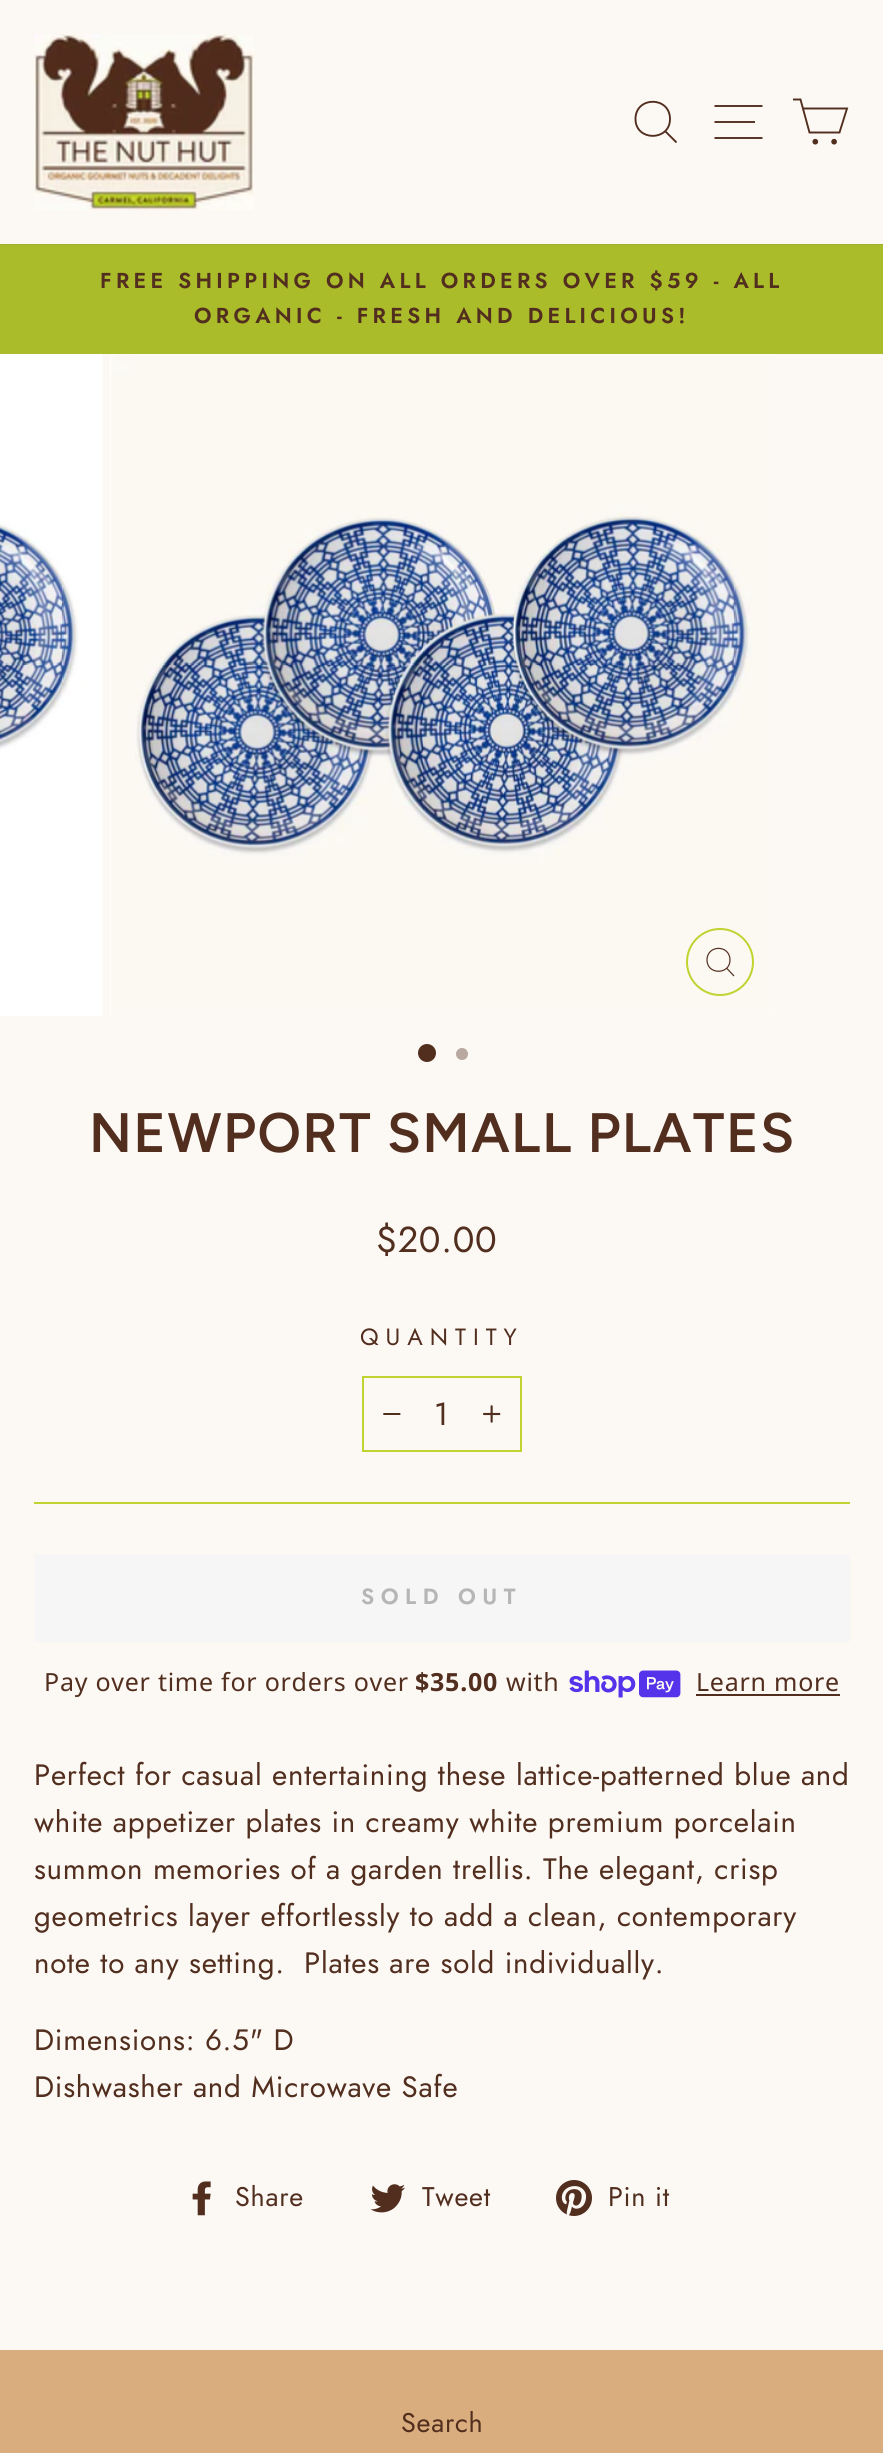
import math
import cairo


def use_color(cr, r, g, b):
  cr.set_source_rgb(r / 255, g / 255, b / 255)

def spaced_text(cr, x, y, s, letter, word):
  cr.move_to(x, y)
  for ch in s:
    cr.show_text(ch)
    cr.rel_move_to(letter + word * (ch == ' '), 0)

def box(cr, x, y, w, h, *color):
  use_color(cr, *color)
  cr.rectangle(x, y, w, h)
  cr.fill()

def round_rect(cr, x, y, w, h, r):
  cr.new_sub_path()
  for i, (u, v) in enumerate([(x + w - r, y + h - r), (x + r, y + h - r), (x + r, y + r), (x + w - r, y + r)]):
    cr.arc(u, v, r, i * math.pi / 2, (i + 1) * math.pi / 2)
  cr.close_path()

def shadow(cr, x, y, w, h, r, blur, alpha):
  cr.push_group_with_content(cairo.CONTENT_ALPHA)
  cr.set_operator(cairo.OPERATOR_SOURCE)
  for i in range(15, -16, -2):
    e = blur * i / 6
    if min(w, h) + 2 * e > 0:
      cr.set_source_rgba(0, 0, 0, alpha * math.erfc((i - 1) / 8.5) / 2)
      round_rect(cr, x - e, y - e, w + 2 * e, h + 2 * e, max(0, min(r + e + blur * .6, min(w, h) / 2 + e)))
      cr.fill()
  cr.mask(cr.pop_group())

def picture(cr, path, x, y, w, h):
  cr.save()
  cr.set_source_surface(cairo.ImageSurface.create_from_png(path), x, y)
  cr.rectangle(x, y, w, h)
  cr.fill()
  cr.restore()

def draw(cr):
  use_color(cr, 252, 249, 244)
  cr.paint()
  box(cr, 0, 244, 883, 110, 171, 188, 42)
  cr.save()
  cr.rectangle(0, 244, 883, 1)
  cr.clip()
  use_color(cr, 0, 0, 0)
  shadow(cr, 0, 0, 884, 244, 0, 1, 0.2)
  cr.restore()
  picture(cr, "img_01.png", 34, 34, 220, 176)
  cr.new_path()
  cr.move_to(670, 119)
  cr.curve_to(670, 141.5, 635.5, 141.5, 635.5, 119)
  cr.curve_to(635.5, 96, 670, 96, 670, 119)
  cr.close_path()
  cr.move_to(676.5, 142.5)
  cr.line_to(665.5, 131.5)
  use_color(cr, 82, 46, 31)
  cr.set_line_width(1.9)
  cr.stroke()
  cr.new_path()
  cr.move_to(714.5, 106)
  cr.line_to(762.5, 106)
  cr.move_to(714.5, 122)
  cr.line_to(755, 122)
  cr.move_to(714.5, 138)
  cr.line_to(762.5, 138)
  cr.stroke()
  cr.new_path()
  cr.move_to(803, 108.5)
  cr.line_to(847, 108.5)
  cr.line_to(839.5, 132.5)
  cr.line_to(809.5, 132.5)
  cr.line_to(800.5, 99.5)
  cr.line_to(793, 99.5)
  cr.stroke()
  cr.arc(815.3, 141.7, 1.9, 0, 2 * math.pi)
  cr.fill_preserve()
  cr.stroke()
  cr.arc(834.1, 141.7, 1.9, 0, 2 * math.pi)
  cr.fill_preserve()
  cr.stroke()
  box(cr, 0, 354, 102, 662, 255, 255, 255)
  picture(cr, "img_02.png", 0, 354, 103, 662)
  box(cr, 110, 354, 664, 662, 255, 255, 255)
  picture(cr, "img_03.png", 111, 354, 663, 662)
  cr.arc(720, 962, 33, 0, 2 * math.pi)
  use_color(cr, 192, 211, 48)
  cr.set_line_width(2)
  cr.stroke()
  cr.new_path()
  cr.move_to(730, 960)
  cr.curve_to(730, 975, 707, 975, 707, 960)
  cr.curve_to(707, 944.5, 730, 944.5, 730, 960)
  cr.close_path()
  cr.move_to(734, 976)
  cr.line_to(726.5, 968)
  use_color(cr, 82, 46, 31)
  cr.set_line_width(1.2)
  cr.stroke()
  cr.arc(427, 1053, 9, 0, 2 * math.pi)
  cr.fill()
  use_color(cr, 184, 168, 159)
  cr.arc(462, 1054, 6, 0, 2 * math.pi)
  cr.fill()
  cr.rectangle(363, 1377, 158, 74)
  use_color(cr, 192, 211, 48)
  cr.set_line_width(2)
  cr.stroke()
  picture(cr, "img_04.png", 383, 1413, 18, 2)
  picture(cr, "img_05.png", 483, 1405, 18, 18)
  box(cr, 34, 1502, 816, 2, 192, 211, 48)
  box(cr, 34, 1554, 816, 88, 246, 246, 246)
  picture(cr, "img_06.png", 569, 1670, 112, 28)
  box(cr, 696, 1694, 144, 2, 82, 46, 31)
  picture(cr, "img_07.png", 192, 2181, 19, 35)
  picture(cr, "img_08.png", 370, 2184, 35, 29)
  picture(cr, "img_09.png", 556, 2180, 36, 36)
  box(cr, 0, 2350, 883, 103, 217, 173, 125)
  cr.select_font_face("Jost SemiBold")
  cr.set_font_size(21.6)
  use_color(cr, 82, 46, 31)
  spaced_text(cr, 100, 288, "FREE SHIPPING ON ALL ORDERS OVER $59 - ALL", 4.3, 0)
  spaced_text(cr, 194, 323, "ORGANIC - FRESH AND DELICIOUS!", 4.3, 0)
  cr.select_font_face("Figtree SemiBold")
  cr.set_font_size(55.5)
  spaced_text(cr, 89, 1152, "NEWPORT SMALL PLATES", 1.4, 0)
  cr.select_font_face("Jost")
  cr.set_font_size(36)
  spaced_text(cr, 376, 1252, "$20.00", 0.75, 0)
  cr.set_font_size(23.5)
  spaced_text(cr, 360, 1345, "QUANTITY", 7, 0)
  cr.set_font_size(32)
  spaced_text(cr, 434, 1425, "1", 1, 0)
  cr.select_font_face("Jost SemiBold")
  cr.set_font_size(22)
  use_color(cr, 182, 182, 182)
  spaced_text(cr, 361, 1604, "SOLD OUT", 6.5, 0)
  cr.select_font_face("Noto Sans")
  cr.set_font_size(25)
  use_color(cr, 82, 46, 31)
  spaced_text(cr, 44, 1691, "Pay over time for orders over", 0.75, 0)
  cr.select_font_face("Noto Sans", cairo.FONT_SLANT_NORMAL, cairo.FONT_WEIGHT_BOLD)
  spaced_text(cr, 415, 1691, "$35.00", 0.75, 0)
  cr.select_font_face("Noto Sans")
  spaced_text(cr, 506, 1691, "with", 0.75, 0)
  spaced_text(cr, 696, 1691, "Learn more", 0.75, 0)
  cr.select_font_face("Jost")
  cr.set_font_size(29.45)
  spaced_text(cr, 34, 1785, "Perfect for casual entertaining these lattice-patterned blue and", 0.75, 0)
  spaced_text(cr, 34, 1832, "white appetizer plates in creamy white premium porcelain", 0.75, 0)
  spaced_text(cr, 34, 1879, "summon memories of a garden trellis. The elegant, crisp", 0.75, 0)
  spaced_text(cr, 34, 1926, "geometrics layer effortlessly to add a clean, contemporary", 0.75, 0)
  spaced_text(cr, 34, 1973, "note to any setting.  Plates are sold individually.", 0.75, 0)
  spaced_text(cr, 34, 2050, "Dimensions: 6.5\" D", 0.75, 0)
  spaced_text(cr, 34, 2097, "Dishwasher and Microwave Safe", 0.75, 0)
  cr.set_font_size(27)
  spaced_text(cr, 235, 2206, "Share", 0.75, 0)
  spaced_text(cr, 422, 2206, "Tweet", 0.75, 0)
  spaced_text(cr, 608, 2206, "Pin it", 0.75, 0)
  spaced_text(cr, 401, 2432, "Search", 0.75, 0)


surface = cairo.ImageSurface(cairo.FORMAT_RGB24, 883, 2453)
cr = cairo.Context(surface)
options = cairo.FontOptions()
options.set_hint_metrics(cairo.HINT_METRICS_OFF)
options.set_hint_style(cairo.HINT_STYLE_NONE)
cr.set_font_options(options)
cr.set_miter_limit(4)
draw(cr)
surface.write_to_png("out.png")
